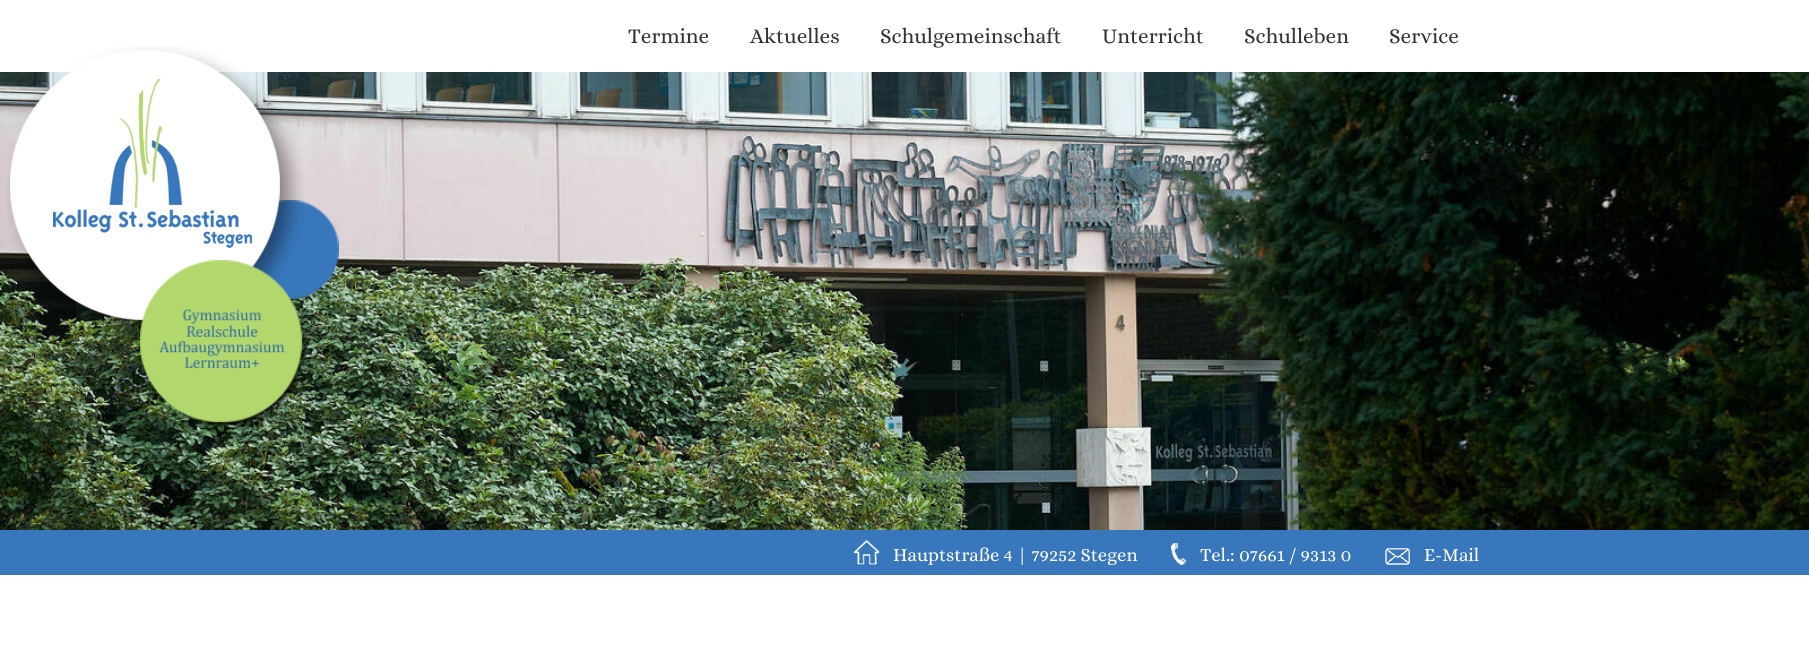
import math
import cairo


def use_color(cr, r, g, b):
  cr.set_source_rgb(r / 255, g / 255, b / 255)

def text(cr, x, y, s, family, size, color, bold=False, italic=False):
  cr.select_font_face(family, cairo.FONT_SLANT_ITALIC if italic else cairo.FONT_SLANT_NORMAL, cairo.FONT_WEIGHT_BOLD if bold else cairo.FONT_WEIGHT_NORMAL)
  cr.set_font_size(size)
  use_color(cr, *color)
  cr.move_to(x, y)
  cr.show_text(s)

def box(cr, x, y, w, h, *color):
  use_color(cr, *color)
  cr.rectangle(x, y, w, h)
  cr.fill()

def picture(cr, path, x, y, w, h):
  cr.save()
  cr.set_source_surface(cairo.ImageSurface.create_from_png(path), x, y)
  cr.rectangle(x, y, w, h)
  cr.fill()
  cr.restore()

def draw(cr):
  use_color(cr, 255, 255, 255)
  cr.paint()
  picture(cr, "img_02.png", 0, 72, 1809, 458)
  picture(cr, "img_03.png", 252, 200, 87, 99)
  picture(cr, "img_01.png", 6, 46, 298, 297)
  picture(cr, "img_04.png", 140, 260, 167, 168)
  box(cr, 0, 530, 1809, 45, 56, 119, 188)
  picture(cr, "img_05.png", 854, 540, 25, 25)
  picture(cr, "img_06.png", 1171, 543, 15, 22)
  picture(cr, "img_07.png", 1385, 548, 25, 17)
  text(cr, 628, 43, "Termine", "Alice", 21.25, (51, 51, 51))
  text(cr, 750, 43, "Aktuelles", "Alice", 21.25, (51, 51, 51))
  text(cr, 880, 43, "Schulgemeinschaft", "Alice", 21.25, (51, 51, 51))
  text(cr, 1102, 43, "Unterricht", "Alice", 21.25, (51, 51, 51))
  text(cr, 1244, 43, "Schulleben", "Alice", 21.25, (51, 51, 51))
  text(cr, 1389, 43, "Service", "Alice", 21.25, (51, 51, 51))
  text(cr, 893, 561, "Hauptstraße 4 | 79252 Stegen", "Alice", 18.7, (255, 255, 255))
  text(cr, 1200, 561, "Tel.: 07661 / 9313 0", "Alice", 18.7, (255, 255, 255))
  text(cr, 1424, 561, "E-Mail", "Alice", 18.7, (255, 255, 255))


surface = cairo.ImageSurface(cairo.FORMAT_RGB24, 1809, 662)
cr = cairo.Context(surface)
options = cairo.FontOptions()
options.set_hint_metrics(cairo.HINT_METRICS_OFF)
options.set_hint_style(cairo.HINT_STYLE_NONE)
cr.set_font_options(options)
cr.set_miter_limit(4)
draw(cr)
surface.write_to_png("out.png")
